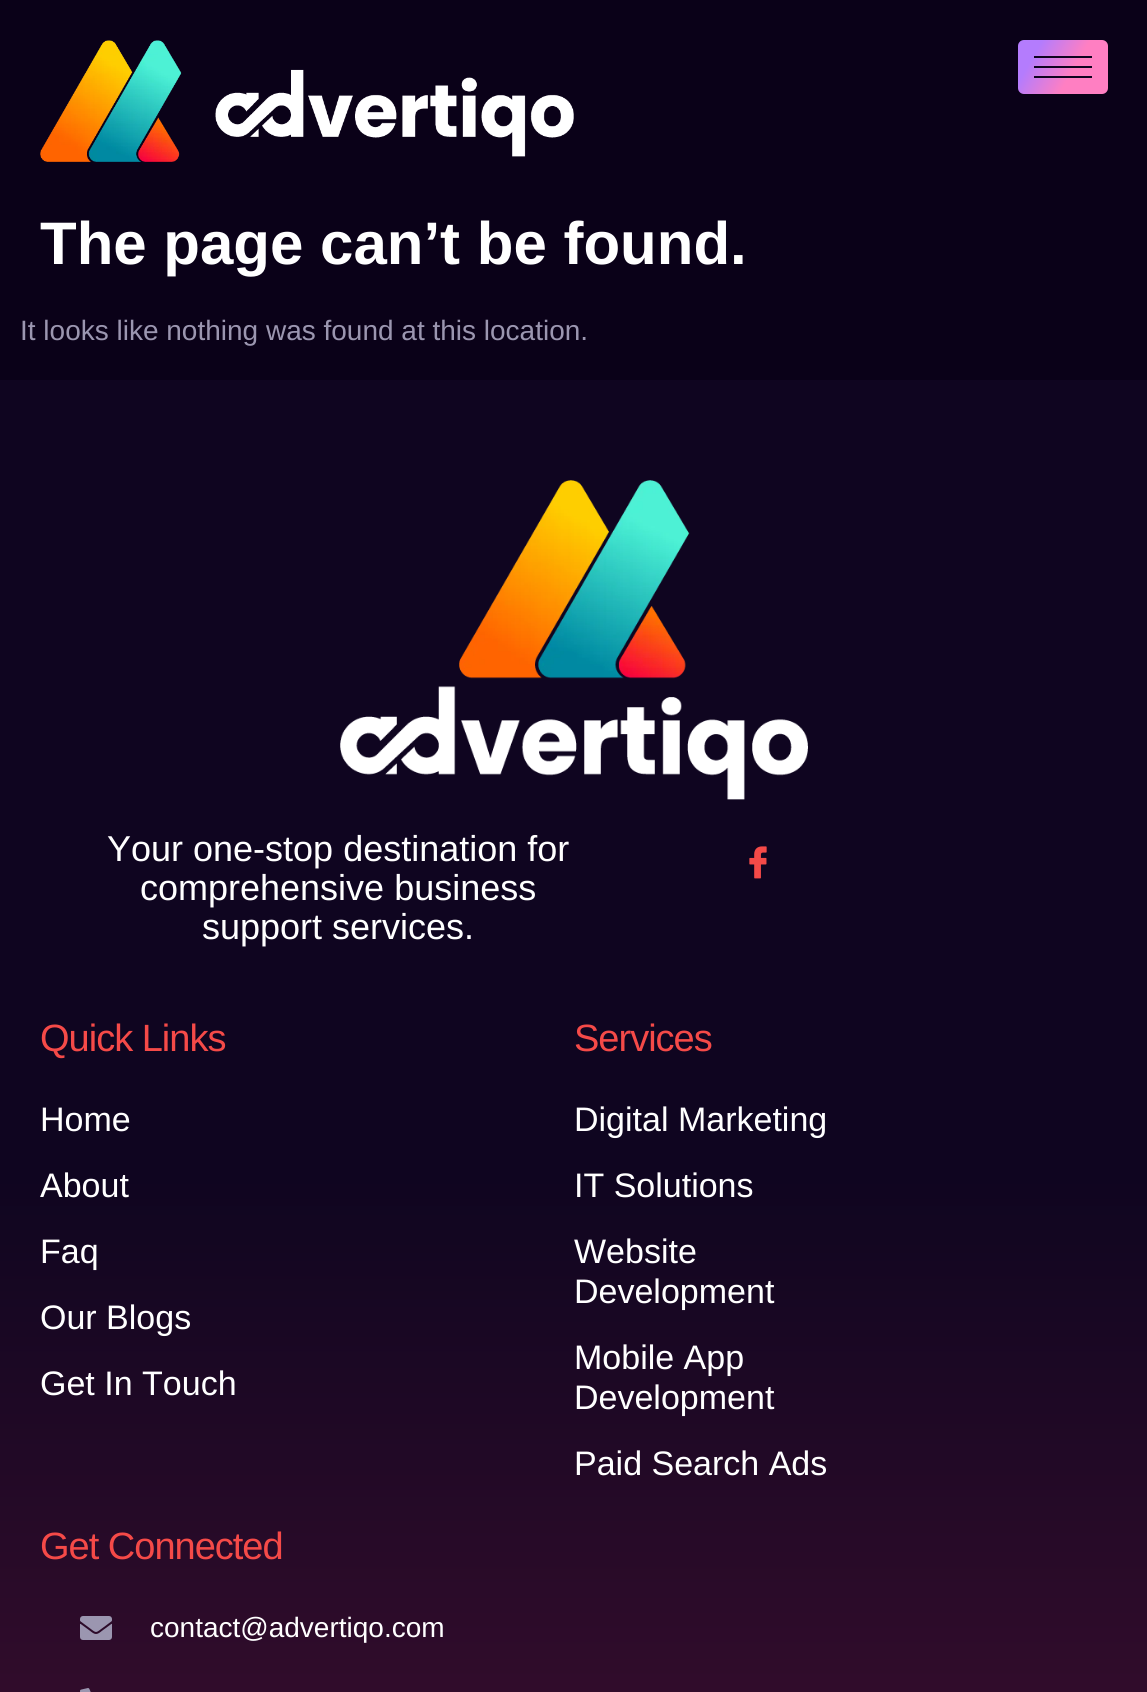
import math
import cairo


def use_color(cr, r, g, b):
  cr.set_source_rgb(r / 255, g / 255, b / 255)

def text(cr, x, y, s, family, size, color, bold=False, italic=False):
  cr.select_font_face(family, cairo.FONT_SLANT_ITALIC if italic else cairo.FONT_SLANT_NORMAL, cairo.FONT_WEIGHT_BOLD if bold else cairo.FONT_WEIGHT_NORMAL)
  cr.set_font_size(size)
  use_color(cr, *color)
  cr.move_to(x, y)
  cr.show_text(s)

def spaced_text(cr, x, y, s, letter, word):
  cr.move_to(x, y)
  for ch in s:
    cr.show_text(ch)
    cr.rel_move_to(letter + word * (ch == ' '), 0)

def box(cr, x, y, w, h, *color):
  use_color(cr, *color)
  cr.rectangle(x, y, w, h)
  cr.fill()

def round_rect(cr, x, y, w, h, r):
  cr.new_sub_path()
  for i, (u, v) in enumerate([(x + w - r, y + h - r), (x + r, y + h - r), (x + r, y + r), (x + w - r, y + r)]):
    cr.arc(u, v, r, i * math.pi / 2, (i + 1) * math.pi / 2)
  cr.close_path()

def picture(cr, path, x, y, w, h):
  cr.save()
  cr.set_source_surface(cairo.ImageSurface.create_from_png(path), x, y)
  cr.rectangle(x, y, w, h)
  cr.fill()
  cr.restore()

def draw(cr):
  use_color(cr, 10, 1, 24)
  cr.paint()
  picture(cr, "img_01.png", 40, 40, 534, 122)
  gradient = cairo.LinearGradient(1018, 41, 1108, 93)
  gradient.add_color_stop_rgba(0.2, 0.706, 0.486, 0.992, 1)
  gradient.add_color_stop_rgba(0.6, 1, 0.498, 0.761, 1)
  cr.set_source(gradient)
  round_rect(cr, 1018, 40, 90, 54, 6)
  cr.fill()
  box(cr, 1034, 56, 58, 2, 15, 5, 32)
  box(cr, 1034, 66, 58, 2, 15, 5, 32)
  box(cr, 1034, 76, 58, 2, 15, 5, 32)
  gradient = cairo.LinearGradient(574, 380, 574, 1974)
  gradient.add_color_stop_rgba(0.5, 0.059, 0.02, 0.125, 1)
  gradient.add_color_stop_rgba(1, 0.263, 0.063, 0.192, 1)
  cr.set_source(gradient)
  cr.rectangle(0, 380, 1147, 1312)
  cr.fill()
  picture(cr, "img_02.png", 340, 480, 468, 320)
  picture(cr, "img_03.png", 749, 846, 18, 33)
  picture(cr, "img_04.png", 80, 1616, 32, 24)
  picture(cr, "img_05.png", 80, 1688, 11, 4)
  text(cr, 40, 264, "The page can’t be found.", "Liberation Sans", 60, (255, 255, 255), bold=True)
  text(cr, 20, 340, "It looks like nothing was found at this location.", "Liberation Sans", 28, (155, 150, 176))
  text(cr, 107, 861, "Your one-stop destination for", "Liberation Sans", 36, (255, 255, 255))
  text(cr, 140, 900, "comprehensive business", "Liberation Sans", 36, (255, 255, 255))
  text(cr, 202, 939, "support services.", "Liberation Sans", 36, (255, 255, 255))
  cr.set_font_size(38)
  use_color(cr, 245, 74, 72)
  spaced_text(cr, 40, 1051, "Quick Links", -1, 0)
  text(cr, 40, 1131, "Home", "Liberation Sans", 34, (255, 255, 255))
  text(cr, 40, 1197, "About", "Liberation Sans", 34, (255, 255, 255))
  text(cr, 40, 1263, "Faq", "Liberation Sans", 34, (255, 255, 255))
  text(cr, 40, 1329, "Our Blogs", "Liberation Sans", 34, (255, 255, 255))
  text(cr, 40, 1395, "Get In Touch", "Liberation Sans", 34, (255, 255, 255))
  cr.set_font_size(38)
  use_color(cr, 245, 74, 72)
  spaced_text(cr, 574, 1051, "Services", -1, 0)
  text(cr, 574, 1131, "Digital Marketing", "Liberation Sans", 34, (255, 255, 255))
  text(cr, 574, 1197, "IT Solutions", "Liberation Sans", 34, (255, 255, 255))
  text(cr, 574, 1263, "Website", "Liberation Sans", 34, (255, 255, 255))
  text(cr, 574, 1303, "Development", "Liberation Sans", 34, (255, 255, 255))
  text(cr, 574, 1369, "Mobile App", "Liberation Sans", 34, (255, 255, 255))
  text(cr, 574, 1409, "Development", "Liberation Sans", 34, (255, 255, 255))
  text(cr, 574, 1475, "Paid Search Ads", "Liberation Sans", 34, (255, 255, 255))
  cr.set_font_size(38)
  use_color(cr, 245, 74, 72)
  spaced_text(cr, 40, 1559, "Get Connected", -1, 0)
  text(cr, 150, 1637, "contact@advertiqo.com", "Liberation Sans", 28, (255, 255, 255))


surface = cairo.ImageSurface(cairo.FORMAT_RGB24, 1147, 1692)
cr = cairo.Context(surface)
options = cairo.FontOptions()
options.set_hint_metrics(cairo.HINT_METRICS_OFF)
options.set_hint_style(cairo.HINT_STYLE_NONE)
cr.set_font_options(options)
cr.set_miter_limit(4)
draw(cr)
surface.write_to_png("out.png")
